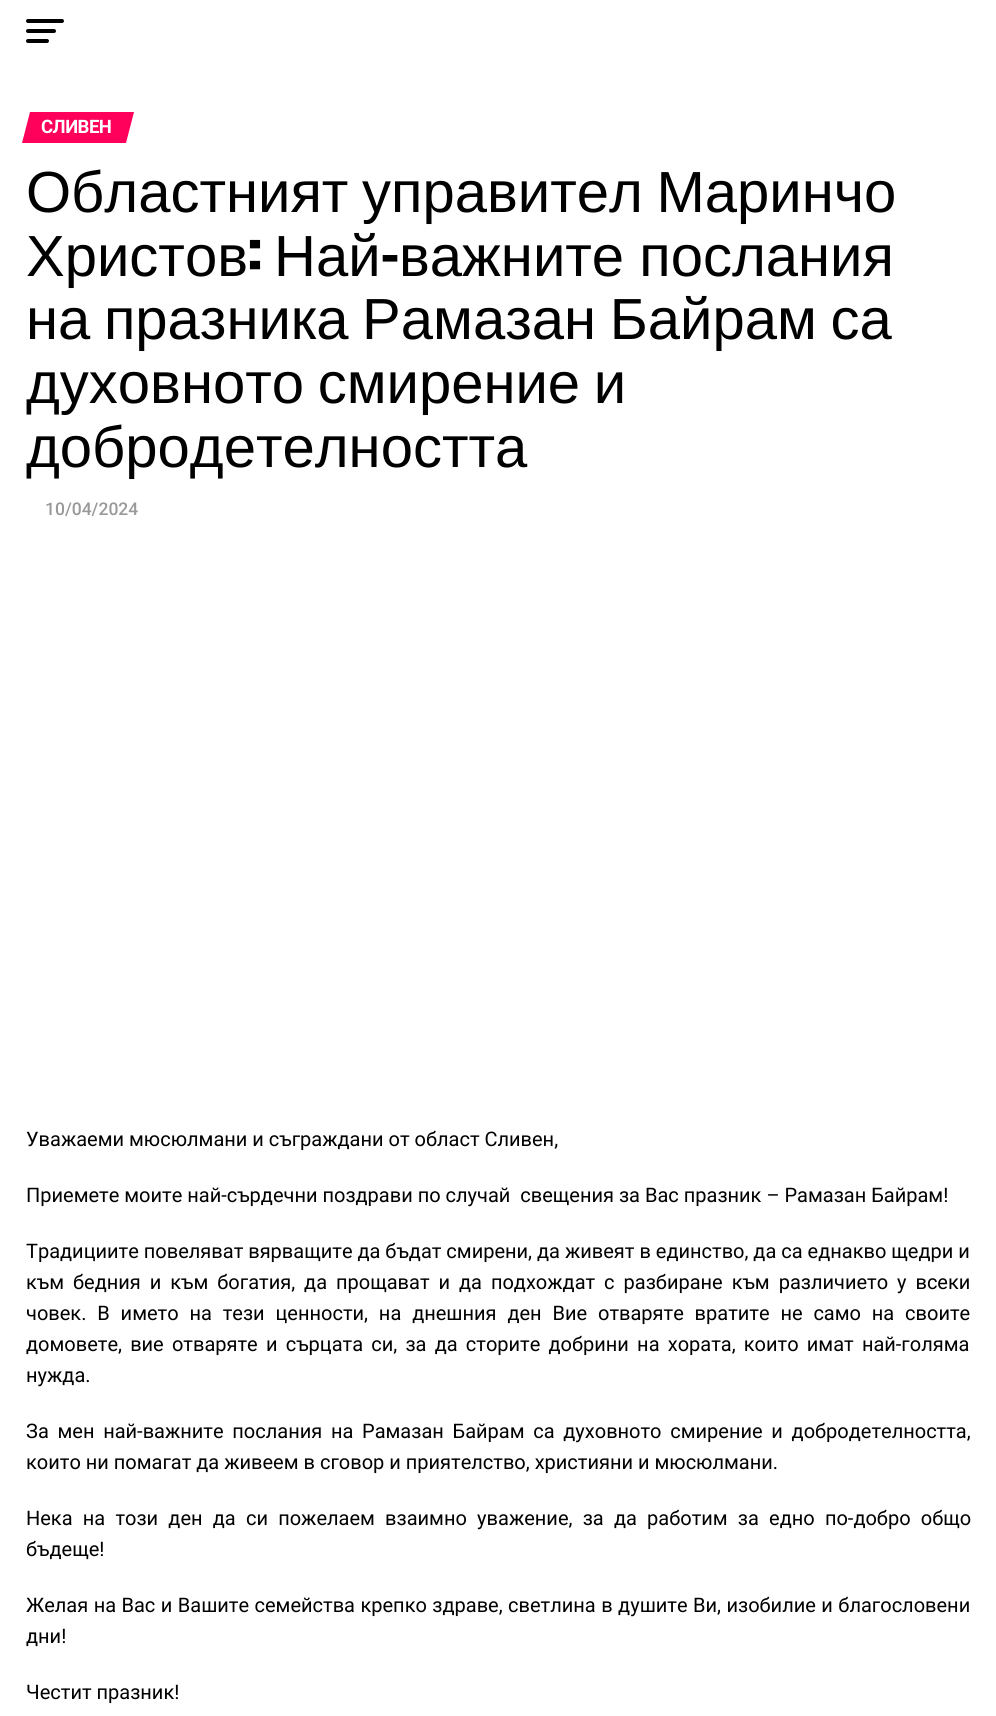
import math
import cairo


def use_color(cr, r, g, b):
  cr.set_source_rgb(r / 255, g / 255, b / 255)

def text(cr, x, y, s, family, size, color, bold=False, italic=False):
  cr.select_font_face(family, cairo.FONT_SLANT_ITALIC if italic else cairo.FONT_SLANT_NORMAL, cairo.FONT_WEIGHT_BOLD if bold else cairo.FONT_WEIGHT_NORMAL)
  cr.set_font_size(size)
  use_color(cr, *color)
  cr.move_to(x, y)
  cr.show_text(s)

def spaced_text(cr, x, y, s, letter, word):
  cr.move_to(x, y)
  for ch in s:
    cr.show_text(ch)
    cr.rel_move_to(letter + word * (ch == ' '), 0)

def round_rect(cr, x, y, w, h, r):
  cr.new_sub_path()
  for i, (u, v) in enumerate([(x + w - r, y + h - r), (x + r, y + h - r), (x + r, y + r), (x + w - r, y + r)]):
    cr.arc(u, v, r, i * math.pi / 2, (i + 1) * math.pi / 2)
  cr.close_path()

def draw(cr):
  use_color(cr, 255, 255, 255)
  cr.paint()
  use_color(cr, 0, 0, 0)
  round_rect(cr, 26, 19, 38, 4, 2)
  cr.fill()
  round_rect(cr, 26, 29, 30, 4, 2)
  cr.fill()
  round_rect(cr, 26, 39, 23, 4, 2)
  cr.fill()
  use_color(cr, 255, 0, 91)
  cr.new_path()
  cr.move_to(30, 112)
  cr.line_to(134, 112)
  cr.line_to(126, 143)
  cr.line_to(22, 143)
  cr.close_path()
  cr.fill()
  cr.select_font_face("Roboto", cairo.FONT_SLANT_NORMAL, cairo.FONT_WEIGHT_BOLD)
  cr.set_font_size(18.5)
  use_color(cr, 255, 255, 255)
  spaced_text(cr, 41, 133, "СЛИВЕН", -0.5, 0)
  cr.select_font_face("Liberation Sans")
  cr.set_font_size(58)
  use_color(cr, 0, 0, 0)
  spaced_text(cr, 26, 212, "Областният управител Маринчо", 0, -2.5)
  text(cr, 26, 276, "Христов", "Liberation Sans", 58, (0, 0, 0))
  text(cr, 248, 276, ":", "Anton", 58, (0, 0, 0))
  text(cr, 274, 276, "Най", "Liberation Sans", 58, (0, 0, 0))
  text(cr, 381, 276, "-", "Anton", 58, (0, 0, 0))
  cr.select_font_face("Liberation Sans")
  spaced_text(cr, 399, 276, "важните послания", 0, -1)
  spaced_text(cr, 26, 339, "на празника Рамазан Байрам са", 0, -2.5)
  spaced_text(cr, 26, 403, "духовното смирение и", 0, -2.5)
  text(cr, 26, 467, "добродетелността", "Liberation Sans", 58, (0, 0, 0))
  text(cr, 45, 515, "10/04/2024", "Roboto Medium", 17.5, (153, 153, 153))
  text(cr, 26, 1146, "Уважаеми мюсюлмани и съграждани от област Сливен,", "Roboto", 20, (0, 0, 0))
  text(cr, 26, 1202, "Приемете моите най-сърдечни поздрави по случай  свещения за Вас празник – Рамазан Байрам!", "Roboto", 20, (0, 0, 0))
  text(cr, 26, 1258, "Традициите повеляват вярващите да бъдат смирени, да живеят в единство, да са еднакво щедри и", "Roboto", 20, (0, 0, 0))
  spaced_text(cr, 26, 1289, "към бедния и към богатия, да прощават и да подхождат с разбиране към различието у всеки", 0, 4)
  spaced_text(cr, 26, 1320, "човек. В името на тези ценности, на днешния ден Вие отваряте вратите не само на своите", 0, 5.9)
  spaced_text(cr, 26, 1351, "домовете, вие отваряте и сърцата си, за да сторите добрини на хората, които имат най-голяма", 0, 3.25)
  text(cr, 26, 1382, "нужда.", "Roboto", 20, (0, 0, 0))
  spaced_text(cr, 26, 1438, "За мен най-важните послания на Рамазан Байрам са духовното смирение и добродетелността,", 0, 3.75)
  text(cr, 26, 1469, "които ни помагат да живеем в сговор и приятелство, християни и мюсюлмани.", "Roboto", 20, (0, 0, 0))
  spaced_text(cr, 26, 1525, "Нека на този ден да си пожелаем взаимно уважение, за да работим за едно по-добро общо", 0, 5.25)
  text(cr, 26, 1556, "бъдеще!", "Roboto", 20, (0, 0, 0))
  spaced_text(cr, 26, 1612, "Желая на Вас и Вашите семейства крепко здраве, светлина в душите Ви, изобилие и благословени", 0, 0.5)
  text(cr, 26, 1643, "дни!", "Roboto", 20, (0, 0, 0))
  text(cr, 26, 1699, "Честит празник!", "Roboto", 20, (0, 0, 0))


surface = cairo.ImageSurface(cairo.FORMAT_RGB24, 996, 1716)
cr = cairo.Context(surface)
options = cairo.FontOptions()
options.set_hint_metrics(cairo.HINT_METRICS_OFF)
options.set_hint_style(cairo.HINT_STYLE_NONE)
cr.set_font_options(options)
cr.set_miter_limit(4)
draw(cr)
surface.write_to_png("out.png")
